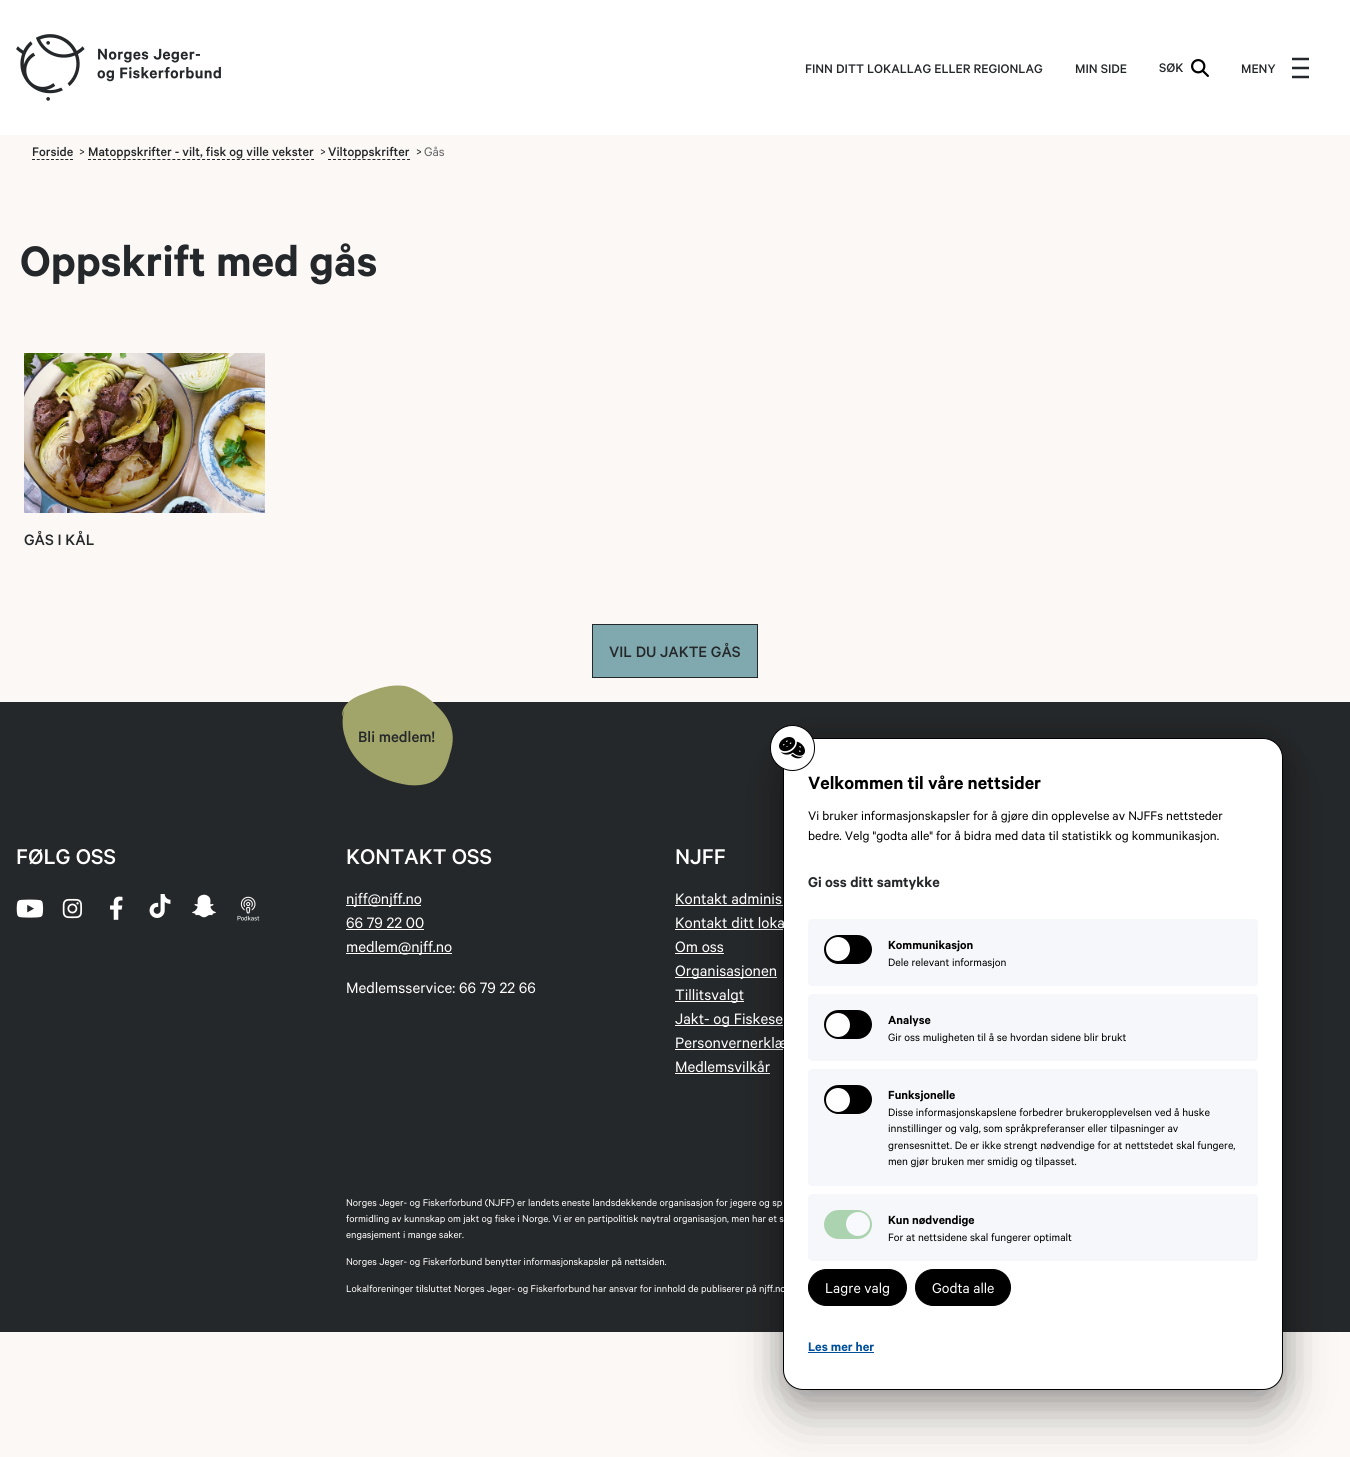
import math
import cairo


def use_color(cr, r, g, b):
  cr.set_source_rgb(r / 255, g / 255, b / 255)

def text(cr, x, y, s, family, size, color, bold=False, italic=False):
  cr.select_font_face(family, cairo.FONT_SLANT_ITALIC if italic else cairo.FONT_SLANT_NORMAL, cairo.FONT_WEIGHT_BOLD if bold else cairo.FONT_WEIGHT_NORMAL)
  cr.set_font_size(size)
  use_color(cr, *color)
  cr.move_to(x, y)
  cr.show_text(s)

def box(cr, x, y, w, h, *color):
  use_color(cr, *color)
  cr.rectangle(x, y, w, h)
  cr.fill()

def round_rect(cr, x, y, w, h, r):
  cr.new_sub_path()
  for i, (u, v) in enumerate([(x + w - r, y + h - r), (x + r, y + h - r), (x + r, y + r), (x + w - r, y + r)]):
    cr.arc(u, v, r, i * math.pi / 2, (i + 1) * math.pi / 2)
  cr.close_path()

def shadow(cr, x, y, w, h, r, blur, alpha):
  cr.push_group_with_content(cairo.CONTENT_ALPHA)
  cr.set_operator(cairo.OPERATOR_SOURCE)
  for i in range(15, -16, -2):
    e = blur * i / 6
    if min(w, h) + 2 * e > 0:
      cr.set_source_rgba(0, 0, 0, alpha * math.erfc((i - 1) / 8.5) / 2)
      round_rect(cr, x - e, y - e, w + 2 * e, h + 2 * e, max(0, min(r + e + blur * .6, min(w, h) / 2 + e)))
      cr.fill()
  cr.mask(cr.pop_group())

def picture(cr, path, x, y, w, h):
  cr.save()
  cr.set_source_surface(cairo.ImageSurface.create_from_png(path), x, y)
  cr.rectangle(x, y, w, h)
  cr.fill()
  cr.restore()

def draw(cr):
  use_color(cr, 251, 248, 245)
  cr.paint()
  box(cr, 0, 0, 1350, 135, 255, 255, 255)
  picture(cr, "img_01.png", 16, 34, 205, 67)
  picture(cr, "img_02.png", 1191, 59, 18, 18)
  cr.new_path()
  cr.move_to(1292, 59)
  cr.line_to(1309, 59)
  cr.move_to(1292, 68)
  cr.line_to(1309, 68)
  cr.move_to(1292, 77)
  cr.line_to(1309, 77)
  use_color(cr, 37, 40, 42)
  cr.set_line_width(2.5)
  cr.stroke()
  cr.new_path()
  cr.move_to(32, 159.5)
  cr.line_to(73, 159.5)
  cr.set_line_width(1)
  cr.set_dash([3, 1.75])
  cr.stroke()
  cr.new_path()
  cr.move_to(88, 159.5)
  cr.line_to(314, 159.5)
  cr.set_dash([3, 1.96])
  cr.stroke()
  cr.new_path()
  cr.move_to(328, 159.5)
  cr.line_to(410, 159.5)
  cr.set_dash([3, 1.94])
  cr.stroke()
  picture(cr, "img_03.png", 24, 353, 241, 160)
  use_color(cr, 127, 169, 174)
  cr.rectangle(592.5, 624.5, 165, 53)
  cr.fill_preserve()
  use_color(cr, 37, 40, 42)
  cr.set_dash([])
  cr.stroke()
  box(cr, 0, 702, 1350, 630, 37, 40, 42)
  use_color(cr, 162, 165, 105)
  cr.new_path()
  cr.move_to(344, 710)
  cr.curve_to(342, 719, 342, 728, 345, 737)
  cr.curve_to(353, 766, 380, 781, 408, 785)
  cr.curve_to(417, 786, 428, 785, 435, 780)
  cr.curve_to(444, 774, 448, 763, 450, 754)
  cr.curve_to(454, 742, 454, 731, 448, 720)
  cr.curve_to(442, 708, 420, 689, 405, 686)
  cr.curve_to(392, 684, 378, 688, 366, 693)
  cr.curve_to(356, 696, 341, 703, 342, 717)
  cr.fill()
  picture(cr, "img_04.png", 16, 899, 28, 19)
  picture(cr, "img_05.png", 62, 898, 20, 21)
  picture(cr, "img_06.png", 110, 896, 13, 24)
  picture(cr, "img_07.png", 149, 894, 22, 24)
  picture(cr, "img_08.png", 192, 894, 24, 24)
  picture(cr, "img_09.png", 237, 896, 23, 25)
  box(cr, 346, 905, 75, 1, 255, 255, 255)
  box(cr, 346, 929, 78, 1, 255, 255, 255)
  box(cr, 346, 953, 106, 1, 255, 255, 255)
  box(cr, 675, 905, 108, 1, 255, 255, 255)
  box(cr, 675, 929, 108, 1, 255, 255, 255)
  box(cr, 675, 953, 49, 1, 255, 255, 255)
  box(cr, 675, 977, 102, 1, 255, 255, 255)
  box(cr, 675, 1001, 69, 1, 255, 255, 255)
  box(cr, 675, 1025, 108, 1, 255, 255, 255)
  box(cr, 675, 1049, 108, 1, 255, 255, 255)
  box(cr, 675, 1073, 95, 1, 255, 255, 255)
  use_color(cr, 0, 0, 0)
  shadow(cr, 783, 763, 500, 652, 20, 25, 0.25)
  shadow(cr, 783, 742, 500, 652, 20, 16, 0.25)
  use_color(cr, 255, 255, 255)
  round_rect(cr, 783.5, 738.5, 499, 651, 19.5)
  cr.fill_preserve()
  use_color(cr, 0, 0, 0)
  cr.stroke()
  use_color(cr, 255, 255, 255)
  round_rect(cr, 770.5, 725.5, 44, 45, 22)
  cr.fill_preserve()
  use_color(cr, 0, 0, 0)
  cr.stroke()
  picture(cr, "img_10.png", 779, 737, 26, 22)
  use_color(cr, 245, 247, 250)
  round_rect(cr, 808, 919, 450, 67, 4)
  cr.fill()
  use_color(cr, 0, 0, 0)
  round_rect(cr, 824, 935, 48, 29, 14.5)
  cr.fill()
  use_color(cr, 255, 255, 255)
  cr.arc(838, 949, 12, 0, 2 * math.pi)
  cr.fill()
  use_color(cr, 245, 247, 250)
  round_rect(cr, 808, 994, 450, 67, 4)
  cr.fill()
  use_color(cr, 0, 0, 0)
  round_rect(cr, 824, 1010, 48, 29, 14.5)
  cr.fill()
  use_color(cr, 255, 255, 255)
  cr.arc(838, 1025, 12, 0, 2 * math.pi)
  cr.fill()
  use_color(cr, 245, 247, 250)
  round_rect(cr, 808, 1069, 450, 117, 4)
  cr.fill()
  use_color(cr, 0, 0, 0)
  round_rect(cr, 824, 1085, 48, 29, 14.5)
  cr.fill()
  use_color(cr, 255, 255, 255)
  cr.arc(838, 1100, 12, 0, 2 * math.pi)
  cr.fill()
  use_color(cr, 245, 247, 250)
  round_rect(cr, 808, 1194, 450, 67, 4)
  cr.fill()
  use_color(cr, 172, 211, 175)
  round_rect(cr, 824, 1210, 48, 29, 14.5)
  cr.fill()
  use_color(cr, 248, 249, 252)
  cr.arc(858, 1224, 12, 0, 2 * math.pi)
  cr.fill()
  use_color(cr, 0, 0, 0)
  round_rect(cr, 808.5, 1269.5, 98, 36, 18)
  cr.fill_preserve()
  cr.stroke()
  round_rect(cr, 915.5, 1269.5, 95, 36, 18)
  cr.fill_preserve()
  cr.stroke()
  box(cr, 808, 1352, 66, 1, 0, 79, 154)
  text(cr, 805, 73, "FINN DITT LOKALLAG ELLER REGIONLAG", "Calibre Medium", 14, (37, 40, 42))
  text(cr, 1075, 73, "MIN SIDE", "Calibre Medium", 14, (37, 40, 42))
  text(cr, 1159, 72, "SØK", "Calibre Medium", 14, (37, 40, 42))
  text(cr, 1241, 73, "MENY", "Calibre Medium", 14, (37, 40, 42))
  text(cr, 32, 156, "Forside", "Calibre Medium", 14, (37, 40, 42))
  text(cr, 79, 156, ">", "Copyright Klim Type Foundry", 14, (37, 40, 42))
  text(cr, 88, 156, "Matoppskrifter - vilt, fisk og ville vekster", "Calibre Medium", 14, (37, 40, 42))
  text(cr, 320, 156, ">", "Copyright Klim Type Foundry", 14, (37, 40, 42))
  text(cr, 328, 156, "Viltoppskrifter", "Calibre Medium", 14, (37, 40, 42))
  text(cr, 416, 156, ">", "Copyright Klim Type Foundry", 14, (37, 40, 42))
  text(cr, 424, 156, "Gås", "Copyright Klim Type Foundry", 14, (101, 102, 103))
  text(cr, 20, 276, "Oppskrift med gås", "Calibre SemiBold", 48, (37, 40, 42))
  text(cr, 24, 545, "GÅS I KÅL", "Calibre Medium", 17, (37, 40, 42))
  text(cr, 609, 657, "VIL DU JAKTE GÅS", "Calibre Medium", 17, (37, 40, 42))
  text(cr, 358, 742, "Bli medlem!", "Calibre Medium", 17, (37, 40, 42))
  text(cr, 16, 864, "FØLG OSS", "Calibre Medium", 24, (255, 255, 255))
  text(cr, 346, 864, "KONTAKT OSS", "Calibre Medium", 24, (255, 255, 255))
  text(cr, 346, 904, "njff@njff.no", "Copyright Klim Type Foundry", 17, (255, 255, 255))
  text(cr, 346, 928, "66 79 22 00", "Copyright Klim Type Foundry", 17, (255, 255, 255))
  text(cr, 346, 952, "medlem@njff.no", "Copyright Klim Type Foundry", 17, (255, 255, 255))
  text(cr, 346, 993, "Medlemsservice: 66 79 22 66", "Copyright Klim Type Foundry", 17, (255, 255, 255))
  text(cr, 675, 864, "NJFF", "Calibre Medium", 24, (255, 255, 255))
  text(cr, 675, 904, "Kontakt adminis", "Copyright Klim Type Foundry", 17, (255, 255, 255))
  text(cr, 675, 928, "Kontakt ditt loka", "Copyright Klim Type Foundry", 17, (255, 255, 255))
  text(cr, 675, 952, "Om oss", "Copyright Klim Type Foundry", 17, (255, 255, 255))
  text(cr, 675, 976, "Organisasjonen", "Copyright Klim Type Foundry", 17, (255, 255, 255))
  text(cr, 675, 1000, "Tillitsvalgt", "Copyright Klim Type Foundry", 17, (255, 255, 255))
  text(cr, 675, 1024, "Jakt- og Fiskese", "Copyright Klim Type Foundry", 17, (255, 255, 255))
  text(cr, 675, 1048, "Personvernerklæ", "Copyright Klim Type Foundry", 17, (255, 255, 255))
  text(cr, 675, 1072, "Medlemsvilkår", "Copyright Klim Type Foundry", 17, (255, 255, 255))
  text(cr, 346, 1206, "Norges Jeger- og Fiskerforbund (NJFF) er landets eneste landsdekkende organisasjon for jegere og sp", "Copyright Klim Type Foundry", 11, (255, 255, 255))
  text(cr, 346, 1222, "formidling av kunnskap om jakt og fiske i Norge. Vi er en partipolitisk nøytral organisasjon, men har et s", "Copyright Klim Type Foundry", 11, (255, 255, 255))
  text(cr, 346, 1238, "engasjement i mange saker.", "Copyright Klim Type Foundry", 11, (255, 255, 255))
  text(cr, 346, 1265, "Norges Jeger- og Fiskerforbund benytter informasjonskapsler på nettsiden.", "Copyright Klim Type Foundry", 11, (255, 255, 255))
  text(cr, 346, 1292, "Lokalforeninger tilsluttet Norges Jeger- og Fiskerforbund har ansvar for innhold de publiserer på njff.no", "Copyright Klim Type Foundry", 11, (255, 255, 255))
  text(cr, 808, 789, "Velkommen til våre nettsider", "Calibre SemiBold", 20, (0, 0, 0))
  text(cr, 808, 820, "Vi bruker informasjonskapsler for å gjøre din opplevelse av NJFFs nettsteder", "Copyright Klim Type Foundry", 14, (0, 0, 0))
  text(cr, 808, 840, "bedre. Velg \"godta alle\" for å bidra med data til statistikk og kommunikasjon.", "Copyright Klim Type Foundry", 14, (0, 0, 0))
  text(cr, 808, 887, "Gi oss ditt samtykke", "Calibre SemiBold", 16, (37, 40, 42))
  text(cr, 888, 949, "Kommunikasjon", "Calibre SemiBold", 13.25, (0, 0, 0))
  text(cr, 888, 966, "Dele relevant informasjon", "Copyright Klim Type Foundry", 12, (0, 0, 0))
  text(cr, 888, 1024, "Analyse", "Calibre SemiBold", 13.25, (0, 0, 0))
  text(cr, 888, 1041, "Gir oss muligheten til å se hvordan sidene blir brukt", "Copyright Klim Type Foundry", 12, (0, 0, 0))
  text(cr, 888, 1099, "Funksjonelle", "Calibre SemiBold", 13.25, (0, 0, 0))
  text(cr, 888, 1116, "Disse informasjonskapslene forbedrer brukeropplevelsen ved å huske", "Copyright Klim Type Foundry", 12, (0, 0, 0))
  text(cr, 888, 1132, "innstillinger og valg, som språkpreferanser eller tilpasninger av", "Copyright Klim Type Foundry", 12, (0, 0, 0))
  text(cr, 888, 1149, "grensesnittet. De er ikke strengt nødvendige for at nettstedet skal fungere,", "Copyright Klim Type Foundry", 12, (0, 0, 0))
  text(cr, 888, 1165, "men gjør bruken mer smidig og tilpasset.", "Copyright Klim Type Foundry", 12, (0, 0, 0))
  text(cr, 888, 1224, "Kun nødvendige", "Calibre SemiBold", 13.25, (0, 0, 0))
  text(cr, 888, 1241, "For at nettsidene skal fungerer optimalt", "Copyright Klim Type Foundry", 12, (0, 0, 0))
  text(cr, 825, 1293, "Lagre valg", "Copyright Klim Type Foundry", 16, (255, 255, 255))
  text(cr, 932, 1293, "Godta alle", "Copyright Klim Type Foundry", 16, (255, 255, 255))
  text(cr, 808, 1351, "Les mer her", "Calibre SemiBold", 14, (0, 79, 154))


surface = cairo.ImageSurface(cairo.FORMAT_RGB24, 1350, 1457)
cr = cairo.Context(surface)
options = cairo.FontOptions()
options.set_hint_metrics(cairo.HINT_METRICS_OFF)
options.set_hint_style(cairo.HINT_STYLE_NONE)
cr.set_font_options(options)
cr.set_miter_limit(4)
draw(cr)
surface.write_to_png("out.png")
